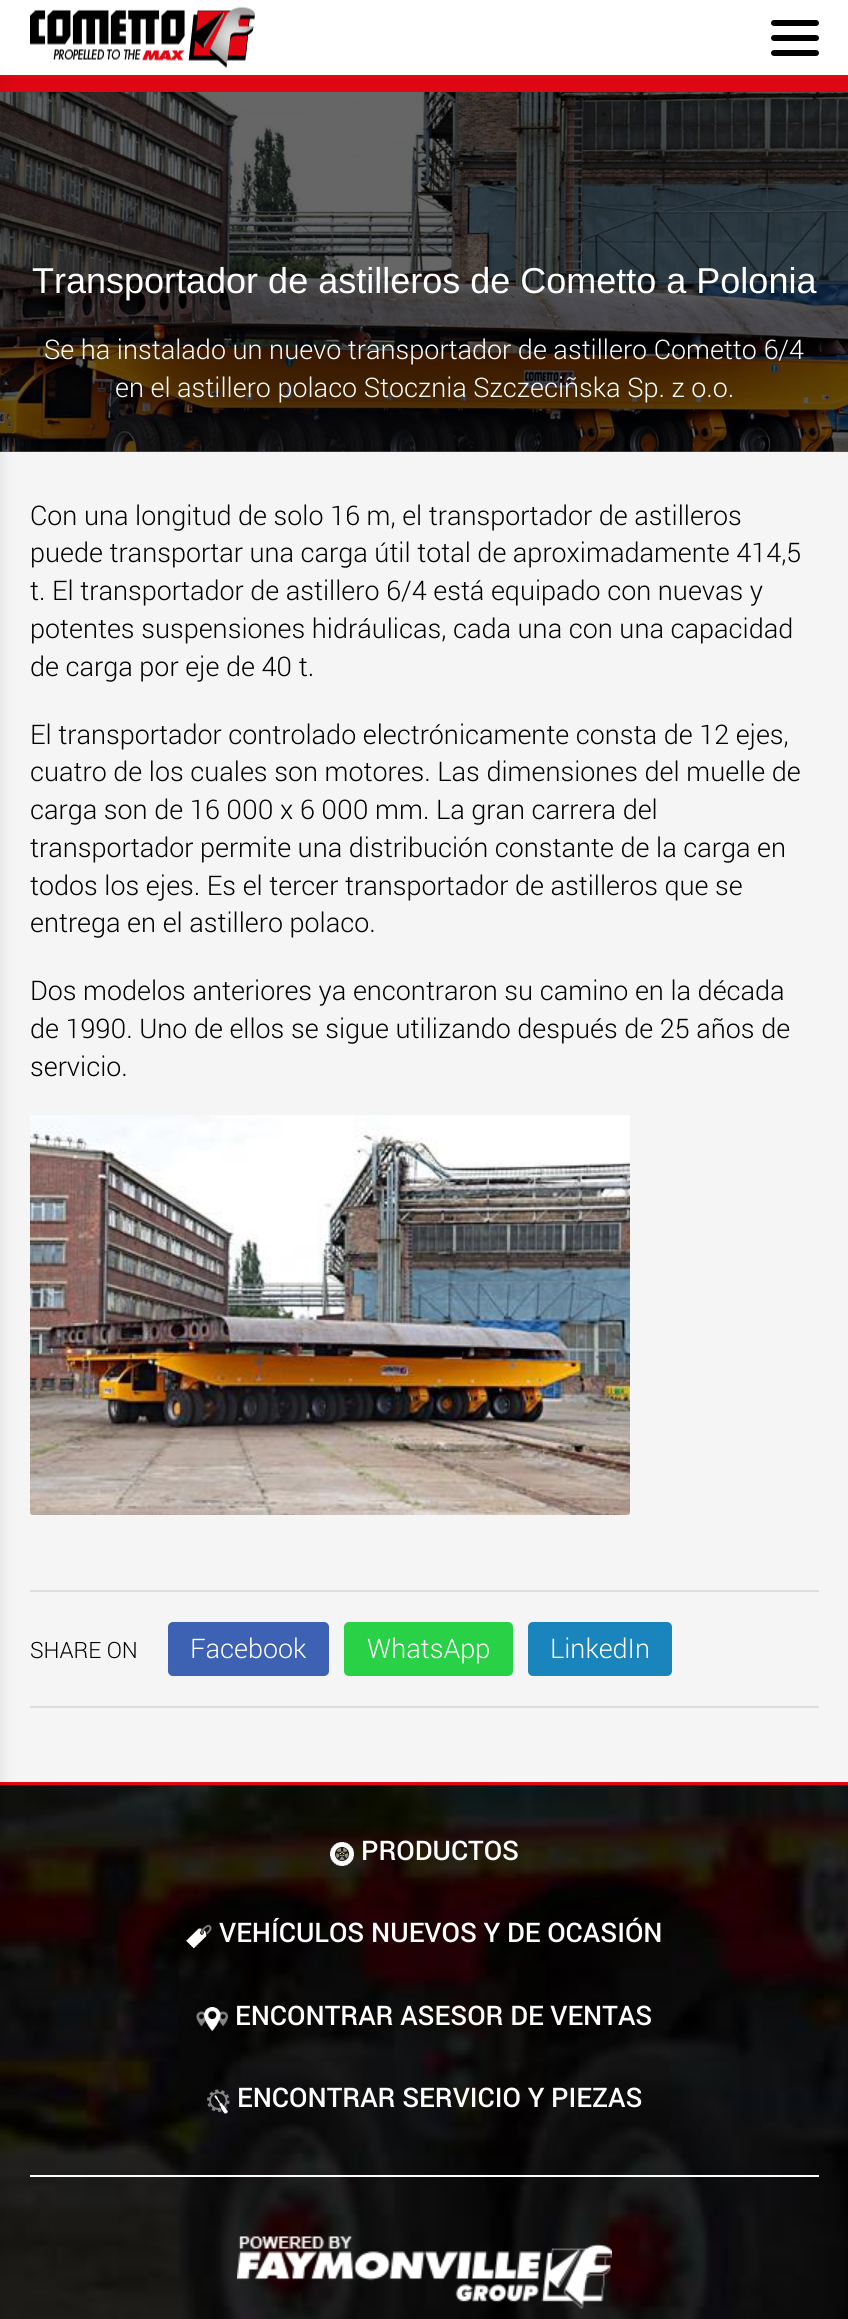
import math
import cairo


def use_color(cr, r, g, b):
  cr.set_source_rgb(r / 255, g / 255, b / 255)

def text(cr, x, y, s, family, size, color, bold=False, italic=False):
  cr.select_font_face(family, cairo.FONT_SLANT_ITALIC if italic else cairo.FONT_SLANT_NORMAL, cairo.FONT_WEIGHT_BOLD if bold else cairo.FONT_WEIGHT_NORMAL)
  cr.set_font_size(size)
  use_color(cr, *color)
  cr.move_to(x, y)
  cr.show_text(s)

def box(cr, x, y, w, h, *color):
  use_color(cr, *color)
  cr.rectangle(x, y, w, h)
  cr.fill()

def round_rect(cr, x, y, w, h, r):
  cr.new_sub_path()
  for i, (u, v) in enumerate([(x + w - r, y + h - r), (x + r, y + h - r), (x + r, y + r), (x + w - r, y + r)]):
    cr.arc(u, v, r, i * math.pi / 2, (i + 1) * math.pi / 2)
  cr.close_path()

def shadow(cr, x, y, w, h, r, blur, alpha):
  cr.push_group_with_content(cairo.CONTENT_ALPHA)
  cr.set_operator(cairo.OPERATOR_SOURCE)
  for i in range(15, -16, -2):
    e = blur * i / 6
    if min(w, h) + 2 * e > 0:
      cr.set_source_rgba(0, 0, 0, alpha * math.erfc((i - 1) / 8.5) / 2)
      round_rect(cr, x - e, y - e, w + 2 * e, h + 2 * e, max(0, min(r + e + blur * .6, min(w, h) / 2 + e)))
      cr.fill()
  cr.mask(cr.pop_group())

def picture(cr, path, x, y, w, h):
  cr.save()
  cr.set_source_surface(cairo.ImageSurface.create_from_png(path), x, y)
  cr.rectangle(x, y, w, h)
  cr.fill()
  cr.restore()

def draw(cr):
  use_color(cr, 102, 102, 102)
  cr.paint()
  box(cr, 0, 78, 848, 14, 227, 6, 19)
  picture(cr, "img_02.png", 0, 92, 848, 360)
  use_color(cr, 0, 0, 0)
  shadow(cr, 0, 0, 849, 78, 0, 7.5, 0.1)
  box(cr, 0, 0, 848, 75, 255, 255, 255)
  box(cr, 0, 75, 848, 3, 227, 6, 19)
  picture(cr, "img_01.png", 30, 7, 225, 61)
  use_color(cr, 0, 0, 0)
  round_rect(cr, 771, 20, 48, 6, 3)
  cr.fill()
  round_rect(cr, 771, 35, 48, 6, 3)
  cr.fill()
  round_rect(cr, 771, 50, 48, 6, 3)
  cr.fill()
  box(cr, 0, 452, 848, 1330, 245, 245, 245)
  box(cr, 0, 1782, 848, 3, 227, 6, 19)
  picture(cr, "img_04.png", 0, 1785, 848, 534)
  use_color(cr, 0, 0, 0)
  shadow(cr, -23, 78, 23, 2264, 0, 7.5, 0.1)
  picture(cr, "img_03.png", 30, 1115, 600, 400)
  box(cr, 30, 1590, 789, 2, 221, 221, 221)
  box(cr, 30, 1706, 789, 2, 221, 221, 221)
  use_color(cr, 61, 98, 179)
  round_rect(cr, 168, 1622, 161, 54, 5)
  cr.fill()
  use_color(cr, 40, 209, 70)
  round_rect(cr, 344, 1622, 169, 54, 5)
  cr.fill()
  use_color(cr, 25, 133, 188)
  round_rect(cr, 528, 1622, 144, 54, 5)
  cr.fill()
  picture(cr, "img_05.png", 330, 1842, 24, 24)
  picture(cr, "img_06.png", 186, 1924, 26, 25)
  picture(cr, "img_07.png", 196, 2007, 32, 24)
  picture(cr, "img_08.png", 207, 2089, 23, 25)
  box(cr, 30, 2175, 789, 2, 255, 255, 255)
  picture(cr, "img_09.png", 237, 2236, 375, 73)
  text(cr, 32, 293, "Transportador de astilleros de Cometto a Polonia", "Liberation Sans", 36, (255, 255, 255))
  text(cr, 44, 359, "Se ha instalado un nuevo transportador de astillero Cometto 6/4", "Roboto Light", 27, (255, 255, 255))
  text(cr, 115, 397, "en el astillero polaco Stocznia Szczeciñska Sp. z o.o.", "Roboto Light", 27, (255, 255, 255))
  text(cr, 30, 525, "Con una longitud de solo 16 m, el transportador de astilleros", "Roboto Light", 27, (0, 0, 0))
  text(cr, 30, 562, "puede transportar una carga útil total de aproximadamente 414,5", "Roboto Light", 27, (0, 0, 0))
  text(cr, 30, 600, "t. El transportador de astillero 6/4 está equipado con nuevas y", "Roboto Light", 27, (0, 0, 0))
  text(cr, 30, 638, "potentes suspensiones hidráulicas, cada una con una capacidad", "Roboto Light", 27, (0, 0, 0))
  text(cr, 30, 676, "de carga por eje de 40 t.", "Roboto Light", 27, (0, 0, 0))
  text(cr, 30, 744, "El transportador controlado electrónicamente consta de 12 ejes,", "Roboto Light", 27, (0, 0, 0))
  text(cr, 30, 781, "cuatro de los cuales son motores. Las dimensiones del muelle de", "Roboto Light", 27, (0, 0, 0))
  text(cr, 30, 819, "carga son de 16 000 x 6 000 mm. La gran carrera del", "Roboto Light", 27, (0, 0, 0))
  text(cr, 30, 857, "transportador permite una distribución constante de la carga en", "Roboto Light", 27, (0, 0, 0))
  text(cr, 30, 895, "todos los ejes. Es el tercer transportador de astilleros que se", "Roboto Light", 27, (0, 0, 0))
  text(cr, 30, 932, "entrega en el astillero polaco.", "Roboto Light", 27, (0, 0, 0))
  text(cr, 30, 1000, "Dos modelos anteriores ya encontraron su camino en la década", "Roboto Light", 27, (0, 0, 0))
  text(cr, 30, 1038, "de 1990. Uno de ellos se sigue utilizando después de 25 años de", "Roboto Light", 27, (0, 0, 0))
  text(cr, 30, 1076, "servicio.", "Roboto Light", 27, (0, 0, 0))
  text(cr, 30, 1658, "SHARE ON", "Roboto Light", 22.5, (0, 0, 0))
  text(cr, 190, 1658, "Facebook", "Roboto Light", 27, (255, 255, 255))
  text(cr, 367, 1658, "WhatsApp", "Roboto Light", 27, (255, 255, 255))
  text(cr, 550, 1658, "LinkedIn", "Roboto Light", 27, (255, 255, 255))
  text(cr, 361, 1860, "PRODUCTOS", "Roboto Medium", 27, (255, 255, 255))
  text(cr, 219, 1942, "VEHÍCULOS NUEVOS Y DE OCASIÓN", "Roboto Medium", 27, (255, 255, 255))
  text(cr, 235, 2025, "ENCONTRAR ASESOR DE VENTAS", "Roboto Medium", 27, (255, 255, 255))
  text(cr, 237, 2107, "ENCONTRAR SERVICIO Y PIEZAS", "Roboto Medium", 27, (255, 255, 255))


surface = cairo.ImageSurface(cairo.FORMAT_RGB24, 848, 2319)
cr = cairo.Context(surface)
options = cairo.FontOptions()
options.set_hint_metrics(cairo.HINT_METRICS_OFF)
options.set_hint_style(cairo.HINT_STYLE_NONE)
cr.set_font_options(options)
cr.set_miter_limit(4)
draw(cr)
surface.write_to_png("out.png")
